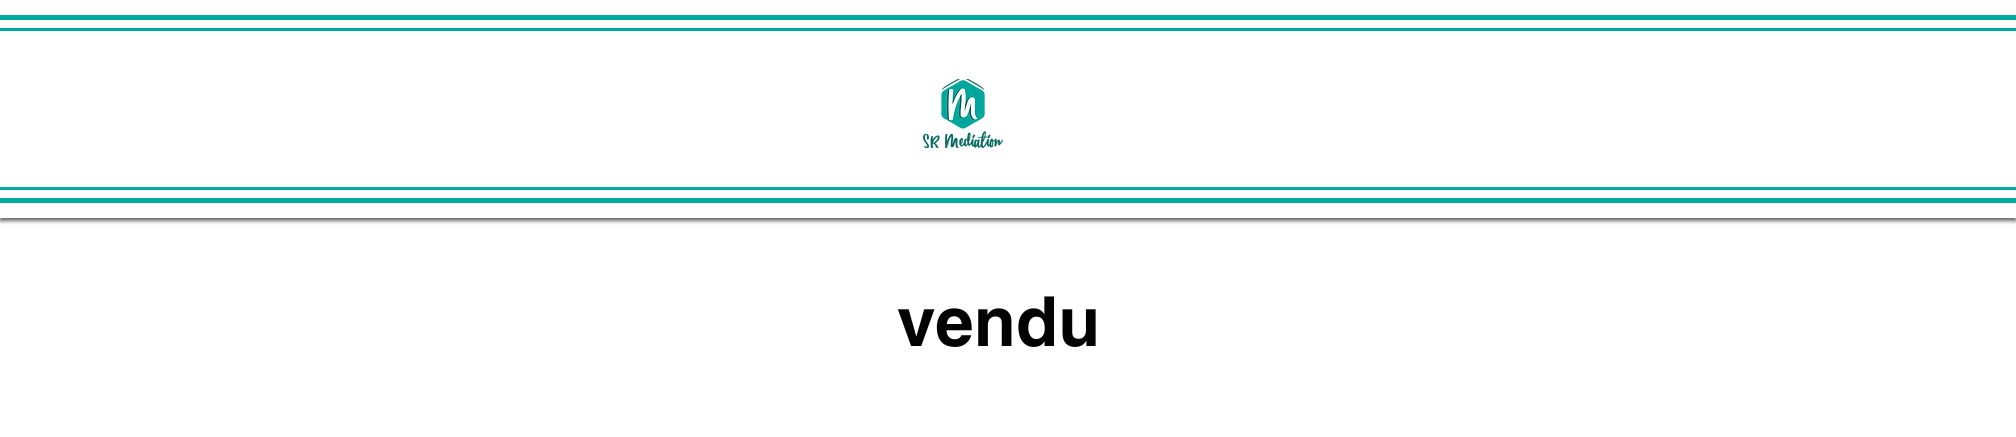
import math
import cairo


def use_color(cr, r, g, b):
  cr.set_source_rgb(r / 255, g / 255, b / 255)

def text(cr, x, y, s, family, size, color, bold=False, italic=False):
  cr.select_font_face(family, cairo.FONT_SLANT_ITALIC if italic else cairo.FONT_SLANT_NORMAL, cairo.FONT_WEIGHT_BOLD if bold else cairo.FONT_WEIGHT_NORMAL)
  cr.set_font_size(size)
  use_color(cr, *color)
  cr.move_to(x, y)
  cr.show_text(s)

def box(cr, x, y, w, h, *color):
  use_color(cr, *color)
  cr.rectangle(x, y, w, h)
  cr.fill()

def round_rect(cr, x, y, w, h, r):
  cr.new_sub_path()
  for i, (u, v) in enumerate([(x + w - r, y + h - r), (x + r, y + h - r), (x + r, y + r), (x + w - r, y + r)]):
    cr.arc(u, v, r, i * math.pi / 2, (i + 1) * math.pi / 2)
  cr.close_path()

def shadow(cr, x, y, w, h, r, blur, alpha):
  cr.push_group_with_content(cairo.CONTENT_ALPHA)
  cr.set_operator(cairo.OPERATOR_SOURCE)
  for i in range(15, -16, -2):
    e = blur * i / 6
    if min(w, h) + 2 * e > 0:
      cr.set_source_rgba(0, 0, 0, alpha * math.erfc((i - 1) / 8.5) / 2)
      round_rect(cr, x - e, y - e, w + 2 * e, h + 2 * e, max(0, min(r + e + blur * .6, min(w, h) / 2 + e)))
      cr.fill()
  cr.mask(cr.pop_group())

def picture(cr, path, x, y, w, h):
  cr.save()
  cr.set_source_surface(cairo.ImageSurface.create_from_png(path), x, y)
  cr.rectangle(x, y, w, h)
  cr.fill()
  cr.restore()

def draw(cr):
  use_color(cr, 255, 255, 255)
  cr.paint()
  cr.save()
  cr.rectangle(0, 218, 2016, 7)
  cr.clip()
  use_color(cr, 0, 0, 0)
  shadow(cr, 0, 3, 2016, 218, 0, 2, 0.6)
  cr.restore()
  box(cr, 0, 15, 2016, 5, 0, 170, 158)
  box(cr, 0, 198, 2016, 5, 0, 170, 158)
  box(cr, 0, 28, 2016, 3, 0, 170, 158)
  box(cr, 0, 187, 2016, 3, 0, 170, 158)
  picture(cr, "img_01.png", 923, 79, 80, 69)
  text(cr, 897, 346, "vendu", "helvetica", 69, (3, 3, 3), bold=True)


surface = cairo.ImageSurface(cairo.FORMAT_RGB24, 2016, 437)
cr = cairo.Context(surface)
options = cairo.FontOptions()
options.set_hint_metrics(cairo.HINT_METRICS_OFF)
options.set_hint_style(cairo.HINT_STYLE_NONE)
cr.set_font_options(options)
cr.set_miter_limit(4)
draw(cr)
surface.write_to_png("out.png")
